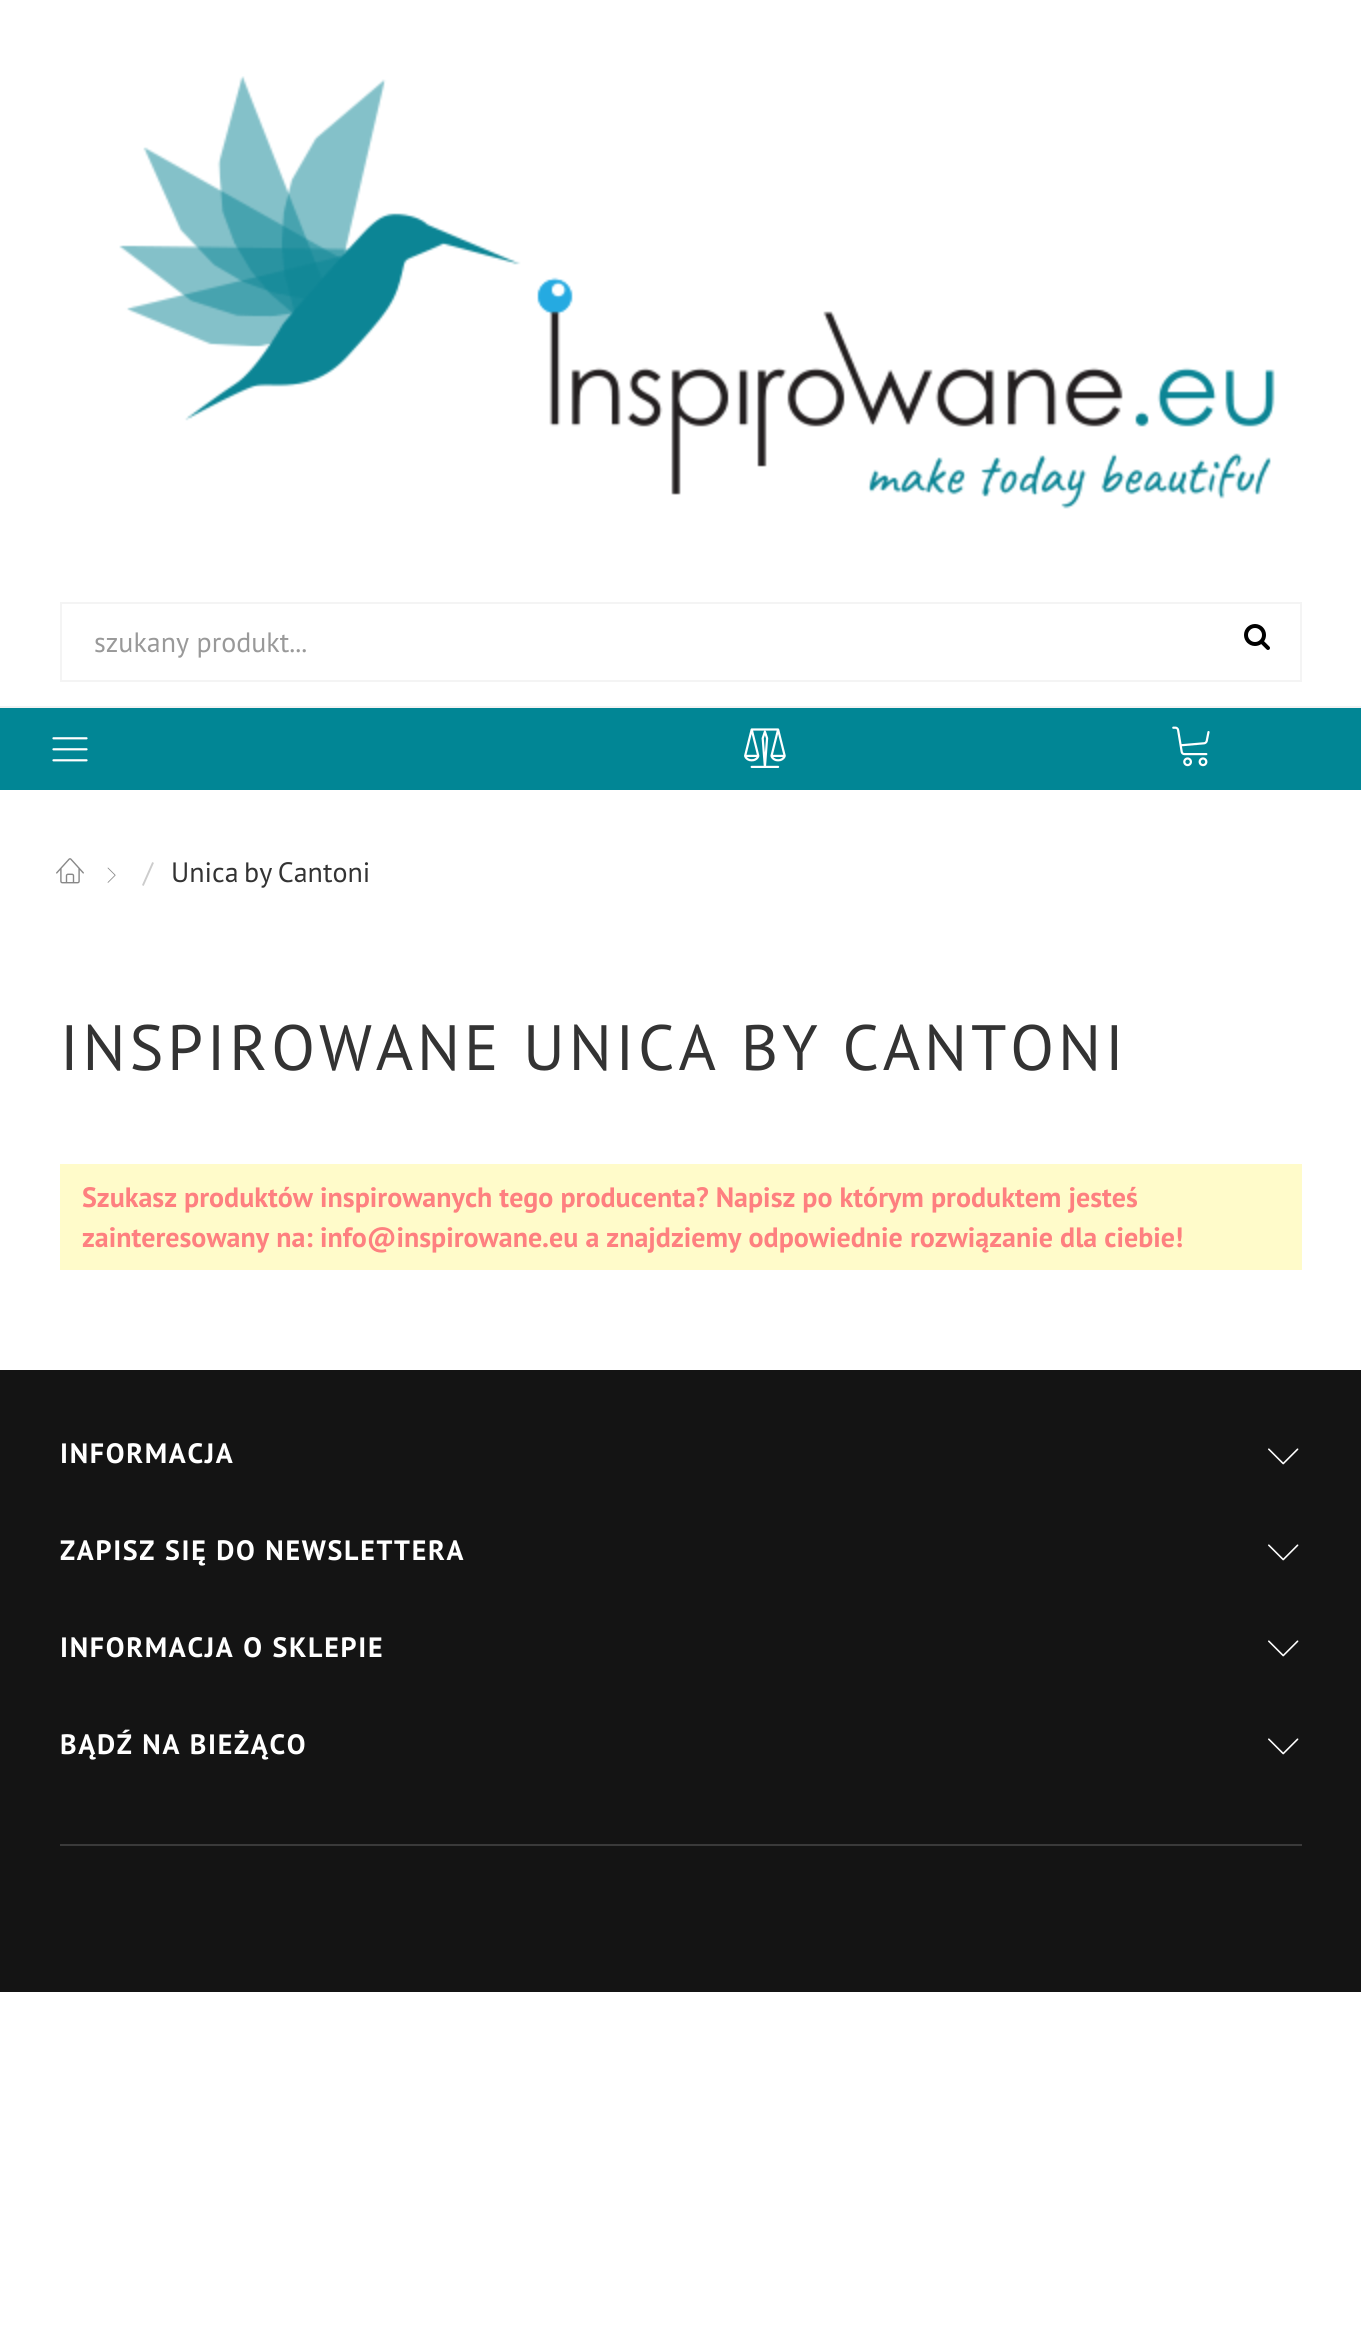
import math
import cairo


def use_color(cr, r, g, b):
  cr.set_source_rgb(r / 255, g / 255, b / 255)

def text(cr, x, y, s, family, size, color, bold=False, italic=False):
  cr.select_font_face(family, cairo.FONT_SLANT_ITALIC if italic else cairo.FONT_SLANT_NORMAL, cairo.FONT_WEIGHT_BOLD if bold else cairo.FONT_WEIGHT_NORMAL)
  cr.set_font_size(size)
  use_color(cr, *color)
  cr.move_to(x, y)
  cr.show_text(s)

def spaced_text(cr, x, y, s, letter, word):
  cr.move_to(x, y)
  for ch in s:
    cr.show_text(ch)
    cr.rel_move_to(letter + word * (ch == ' '), 0)

def box(cr, x, y, w, h, *color):
  use_color(cr, *color)
  cr.rectangle(x, y, w, h)
  cr.fill()

def picture(cr, path, x, y, w, h):
  cr.save()
  cr.set_source_surface(cairo.ImageSurface.create_from_png(path), x, y)
  cr.rectangle(x, y, w, h)
  cr.fill()
  cr.restore()

def draw(cr):
  use_color(cr, 255, 255, 255)
  cr.paint()
  picture(cr, "img_01.png", 119, 76, 1156, 433)
  cr.rectangle(61, 603, 1240, 78)
  use_color(cr, 244, 244, 244)
  cr.stroke()
  picture(cr, "img_02.png", 1244, 624, 26, 26)
  box(cr, 0, 708, 1361, 82, 1, 134, 149)
  picture(cr, "img_03.png", 1172, 726, 38, 41)
  box(cr, 0, 706, 1361, 2, 242, 242, 242)
  picture(cr, "img_04.png", 52, 737, 36, 25)
  picture(cr, "img_05.png", 744, 728, 42, 40)
  picture(cr, "img_06.png", 56, 858, 28, 26)
  picture(cr, "img_07.png", 107, 867, 9, 16)
  box(cr, 60, 1164, 1242, 106, 255, 251, 202)
  box(cr, 0, 1370, 1361, 622, 20, 20, 20)
  picture(cr, "img_08.png", 1268, 1448, 31, 17)
  picture(cr, "img_08.png", 1268, 1544, 31, 17)
  picture(cr, "img_08.png", 1268, 1640, 31, 17)
  picture(cr, "img_08.png", 1268, 1738, 31, 17)
  box(cr, 60, 1844, 1242, 2, 58, 58, 58)
  text(cr, 94, 652, "szukany produkt...", "PT Sans", 28, (153, 153, 153))
  text(cr, 143, 882, "/", "PT Sans", 28, (204, 204, 204))
  use_color(cr, 51, 51, 51)
  spaced_text(cr, 171, 882, "Unica by Cantoni", 0, -2)
  cr.set_font_size(64)
  spaced_text(cr, 60, 1070, "INSPIROWANE UNICA BY CANTONI", 3.85, 0)
  text(cr, 82, 1207, "Szukasz produktów inspirowanych tego producenta? Napisz po którym produktem jesteś", "PT Sans", 28, (254, 128, 128), bold=True)
  text(cr, 82, 1247, "zainteresowany na: info@inspirowane.eu a znajdziemy odpowiednie rozwiązanie dla ciebie!", "PT Sans", 28, (254, 128, 128), bold=True)
  use_color(cr, 255, 255, 255)
  spaced_text(cr, 60, 1463, "INFORMACJA", 1.7, 0)
  spaced_text(cr, 60, 1560, "ZAPISZ SIĘ DO NEWSLETTERA", 1.7, 0)
  spaced_text(cr, 60, 1657, "INFORMACJA O SKLEPIE", 1.7, 0)
  spaced_text(cr, 60, 1754, "BĄDŹ NA BIEŻĄCO", 1.7, 0)


surface = cairo.ImageSurface(cairo.FORMAT_RGB24, 1361, 2339)
cr = cairo.Context(surface)
options = cairo.FontOptions()
options.set_hint_metrics(cairo.HINT_METRICS_OFF)
options.set_hint_style(cairo.HINT_STYLE_NONE)
cr.set_font_options(options)
cr.set_miter_limit(4)
draw(cr)
surface.write_to_png("out.png")
